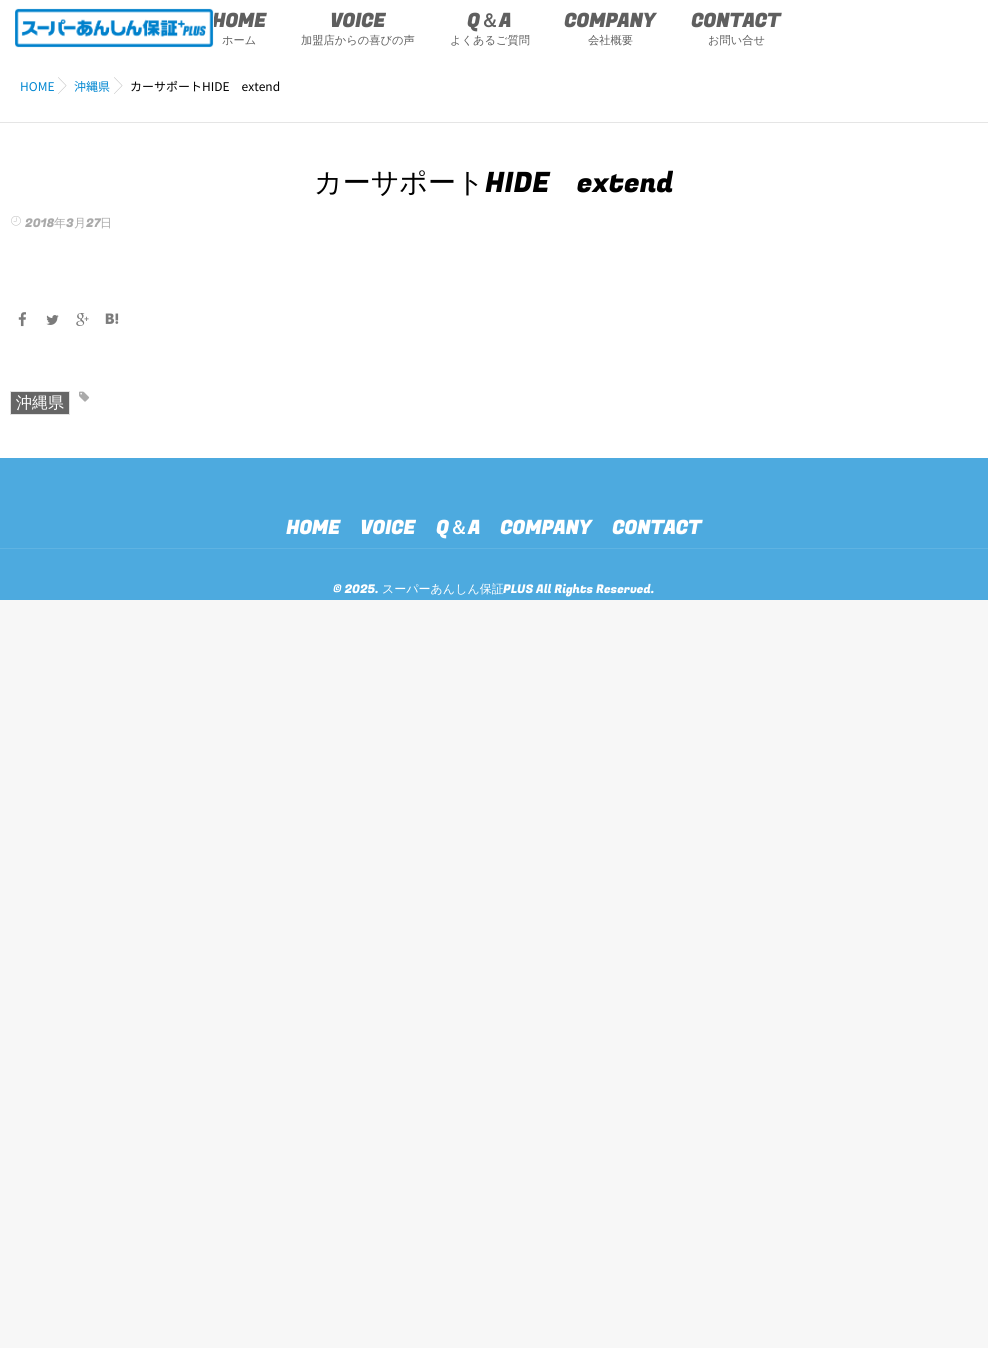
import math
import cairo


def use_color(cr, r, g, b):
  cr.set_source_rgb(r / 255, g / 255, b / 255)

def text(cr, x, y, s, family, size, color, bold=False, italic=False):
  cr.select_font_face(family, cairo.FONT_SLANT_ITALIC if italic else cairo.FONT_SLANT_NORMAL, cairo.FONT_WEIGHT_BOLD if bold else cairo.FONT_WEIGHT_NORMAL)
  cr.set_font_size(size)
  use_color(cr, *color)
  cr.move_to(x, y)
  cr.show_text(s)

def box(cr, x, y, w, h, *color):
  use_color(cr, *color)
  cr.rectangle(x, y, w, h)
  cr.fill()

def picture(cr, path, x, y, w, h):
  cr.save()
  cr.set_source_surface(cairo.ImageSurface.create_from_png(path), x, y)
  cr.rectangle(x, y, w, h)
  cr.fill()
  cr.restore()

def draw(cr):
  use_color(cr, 247, 247, 247)
  cr.paint()
  box(cr, 0, 0, 988, 458, 255, 255, 255)
  box(cr, 0, 122, 988, 1, 229, 229, 229)
  picture(cr, "img_02.png", 58, 77, 9, 17)
  picture(cr, "img_02.png", 114, 77, 9, 17)
  picture(cr, "img_03.png", 11, 216, 10, 10)
  picture(cr, "img_04.png", 18, 312, 8, 15)
  picture(cr, "img_05.png", 46, 315, 13, 10)
  picture(cr, "img_06.png", 76, 313, 13, 13)
  picture(cr, "img_07.png", 105, 313, 14, 11)
  use_color(cr, 102, 102, 102)
  cr.rectangle(10.5, 391.5, 59, 23)
  cr.fill_preserve()
  use_color(cr, 227, 227, 227)
  cr.set_line_width(1)
  cr.stroke()
  picture(cr, "img_08.png", 79, 391, 11, 11)
  box(cr, 0, 458, 988, 142, 77, 170, 223)
  box(cr, 0, 548, 988, 1, 95, 179, 226)
  text(cr, 212, 27, "HOME", "Fugaz One", 19, (95, 95, 95), bold=True)
  picture(cr, "img_01.png", 15, 8, 199, 40)
  text(cr, 222, 44, "ホーム", "WenQuanYi Zen Hei Medium", 11.25, (95, 95, 95))
  text(cr, 330, 27, "VOICE", "Fugaz One", 19, (95, 95, 95), bold=True)
  text(cr, 301, 44, "加盟店からの喜びの声", "WenQuanYi Zen Hei Medium", 11.25, (95, 95, 95))
  text(cr, 467, 27, "Q", "Fugaz One", 19, (95, 95, 95), bold=True)
  text(cr, 480, 27, "＆", "WenQuanYi Zen Hei", 19, (95, 95, 95), bold=True)
  text(cr, 499, 27, "A", "Fugaz One", 19, (95, 95, 95), bold=True)
  text(cr, 450, 44, "よくあるご質問", "WenQuanYi Zen Hei Medium", 11.25, (95, 95, 95))
  text(cr, 564, 27, "COMPANY", "Fugaz One", 19, (95, 95, 95), bold=True)
  text(cr, 588, 44, "会社概要", "WenQuanYi Zen Hei Medium", 11.25, (95, 95, 95))
  text(cr, 691, 27, "CONTACT", "Fugaz One", 19, (95, 95, 95), bold=True)
  text(cr, 708, 44, "お問い合せ", "WenQuanYi Zen Hei Medium", 11.25, (95, 95, 95))
  text(cr, 20, 91, "HOME", "Noto Sans JP", 12, (0, 134, 209))
  text(cr, 74, 91, "沖縄県", "Noto Sans JP", 12, (0, 134, 209))
  text(cr, 130, 91, "カーサポートHIDE　extend", "Noto Sans JP", 12, (0, 0, 0))
  text(cr, 314, 192, "カーサポート", "WenQuanYi Zen Hei Medium", 28, (0, 0, 0))
  text(cr, 485, 192, "HIDE", "Fugaz One", 28, (0, 0, 0))
  text(cr, 577, 192, "extend", "Fugaz One", 28, (0, 0, 0))
  text(cr, 25, 227, "2018", "Fugaz One", 12, (170, 170, 170))
  text(cr, 54, 227, "年", "WenQuanYi Zen Hei Medium", 12, (170, 170, 170))
  text(cr, 66, 227, "3", "Fugaz One", 12, (170, 170, 170))
  text(cr, 74, 227, "月", "WenQuanYi Zen Hei Medium", 12, (170, 170, 170))
  text(cr, 86, 227, "27", "Fugaz One", 12, (170, 170, 170))
  text(cr, 100, 227, "日", "WenQuanYi Zen Hei Medium", 12, (170, 170, 170))
  text(cr, 16, 408, "沖縄県", "WenQuanYi Zen Hei Medium", 16, (255, 255, 255))
  text(cr, 286, 534, "HOME", "Fugaz One", 19, (255, 255, 255), bold=True)
  text(cr, 360, 534, "VOICE", "Fugaz One", 19, (255, 255, 255), bold=True)
  text(cr, 436, 534, "Q", "Fugaz One", 19, (255, 255, 255), bold=True)
  text(cr, 449, 534, "＆", "WenQuanYi Zen Hei", 19, (255, 255, 255), bold=True)
  text(cr, 468, 534, "A", "Fugaz One", 19, (255, 255, 255), bold=True)
  text(cr, 500, 534, "COMPANY", "Fugaz One", 19, (255, 255, 255), bold=True)
  text(cr, 612, 534, "CONTACT", "Fugaz One", 19, (255, 255, 255), bold=True)
  text(cr, 333, 593, "© 2025.", "Fugaz One", 12, (255, 255, 255))
  text(cr, 382, 593, "スーパーあんしん保証", "WenQuanYi Zen Hei Medium", 12, (255, 255, 255))
  text(cr, 503, 593, "PLUS All Rights Reserved.", "Fugaz One", 12, (255, 255, 255))


surface = cairo.ImageSurface(cairo.FORMAT_RGB24, 988, 1348)
cr = cairo.Context(surface)
options = cairo.FontOptions()
options.set_hint_metrics(cairo.HINT_METRICS_OFF)
options.set_hint_style(cairo.HINT_STYLE_NONE)
cr.set_font_options(options)
cr.set_miter_limit(4)
draw(cr)
surface.write_to_png("out.png")
